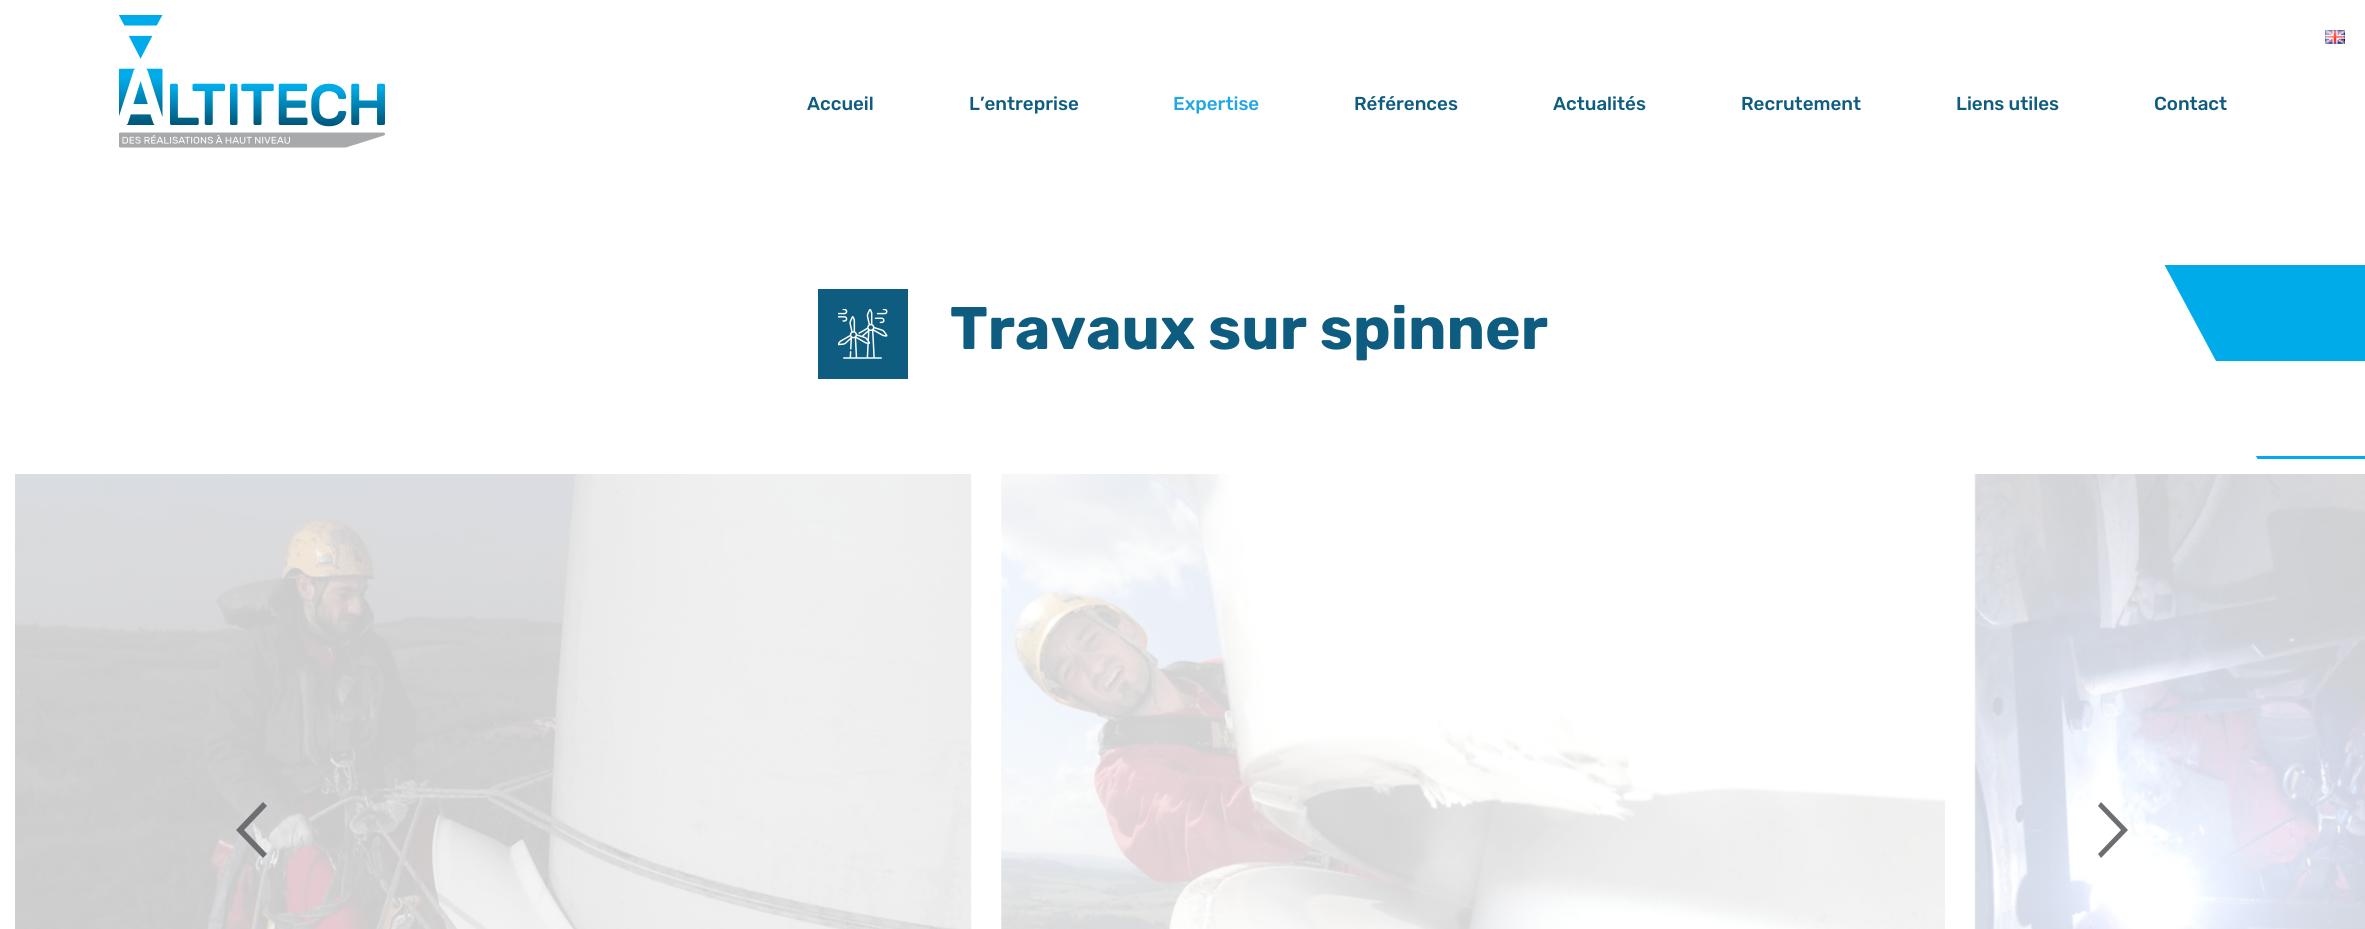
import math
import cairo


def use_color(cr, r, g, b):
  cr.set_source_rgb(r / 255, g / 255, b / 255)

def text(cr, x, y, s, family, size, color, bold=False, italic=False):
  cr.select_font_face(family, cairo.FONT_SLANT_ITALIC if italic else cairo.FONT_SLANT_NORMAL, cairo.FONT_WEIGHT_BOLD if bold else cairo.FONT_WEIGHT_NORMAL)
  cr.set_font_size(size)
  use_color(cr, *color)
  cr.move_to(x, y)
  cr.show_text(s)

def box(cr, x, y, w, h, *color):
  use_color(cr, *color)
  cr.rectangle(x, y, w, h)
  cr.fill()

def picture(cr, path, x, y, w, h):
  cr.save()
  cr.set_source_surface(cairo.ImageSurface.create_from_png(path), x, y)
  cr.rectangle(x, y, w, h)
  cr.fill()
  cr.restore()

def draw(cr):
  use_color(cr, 255, 255, 255)
  cr.paint()
  picture(cr, "img_01.png", 2325, 30, 20, 14)
  picture(cr, "img_02.png", 119, 15, 266, 133)
  box(cr, 818, 289, 90, 90, 14, 92, 128)
  picture(cr, "img_03.png", 838, 309, 50, 50)
  use_color(cr, 0, 171, 233)
  cr.new_path()
  cr.move_to(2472, 456)
  cr.line_to(2256, 456)
  cr.line_to(2364, 666)
  cr.close_path()
  cr.fill()
  box(cr, 2257, 459, 108, 207, 255, 255, 255)
  picture(cr, "img_04.png", 15, 474, 957, 455)
  picture(cr, "img_05.png", 1001, 474, 944, 455)
  picture(cr, "img_06.png", 1974, 474, 391, 455)
  use_color(cr, 109, 110, 113)
  cr.set_fill_rule(cairo.FILL_RULE_EVEN_ODD)
  cr.new_path()
  cr.move_to(263, 858)
  cr.line_to(267, 854)
  cr.line_to(244, 830)
  cr.line_to(267, 806)
  cr.line_to(263, 802)
  cr.line_to(236, 830)
  cr.line_to(263, 858)
  cr.fill()
  cr.new_path()
  cr.move_to(2101, 802)
  cr.line_to(2098, 806)
  cr.line_to(2121, 830)
  cr.line_to(2098, 854)
  cr.line_to(2101, 858)
  cr.line_to(2128, 830)
  cr.line_to(2101, 802)
  cr.fill()
  cr.save()
  cr.set_fill_rule(cairo.FILL_RULE_WINDING)
  cr.rectangle(2164, 265, 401, 401)
  cr.clip()
  use_color(cr, 0, 171, 233)
  cr.new_path()
  cr.move_to(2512, 361)
  cr.line_to(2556, 279)
  cr.line_to(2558, 277)
  cr.line_to(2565, 264)
  cr.line_to(2164, 264)
  cr.line_to(2216, 361)
  cr.close_path()
  cr.fill()
  cr.restore()
  text(cr, 807, 110, "Accueil", "Rubik Medium", 18.75, (14, 92, 128))
  text(cr, 969, 110, "L’entreprise", "Rubik Medium", 18.75, (14, 92, 128))
  text(cr, 1173, 110, "Expertise", "Rubik Medium", 18.75, (34, 168, 224))
  text(cr, 1354, 110, "Références", "Rubik Medium", 18.75, (14, 92, 128))
  text(cr, 1553, 110, "Actualités", "Rubik Medium", 18.75, (14, 92, 128))
  text(cr, 1741, 110, "Recrutement", "Rubik Medium", 18.75, (14, 92, 128))
  text(cr, 1956, 110, "Liens utiles", "Rubik Medium", 18.75, (14, 92, 128))
  text(cr, 2154, 110, "Contact", "Rubik Medium", 18.75, (14, 92, 128))
  text(cr, 950, 349, "Travaux sur spinner", "Rubik", 60, (14, 92, 128), bold=True)


surface = cairo.ImageSurface(cairo.FORMAT_RGB24, 2365, 929)
cr = cairo.Context(surface)
options = cairo.FontOptions()
options.set_hint_metrics(cairo.HINT_METRICS_OFF)
options.set_hint_style(cairo.HINT_STYLE_NONE)
cr.set_font_options(options)
cr.set_miter_limit(4)
draw(cr)
surface.write_to_png("out.png")
